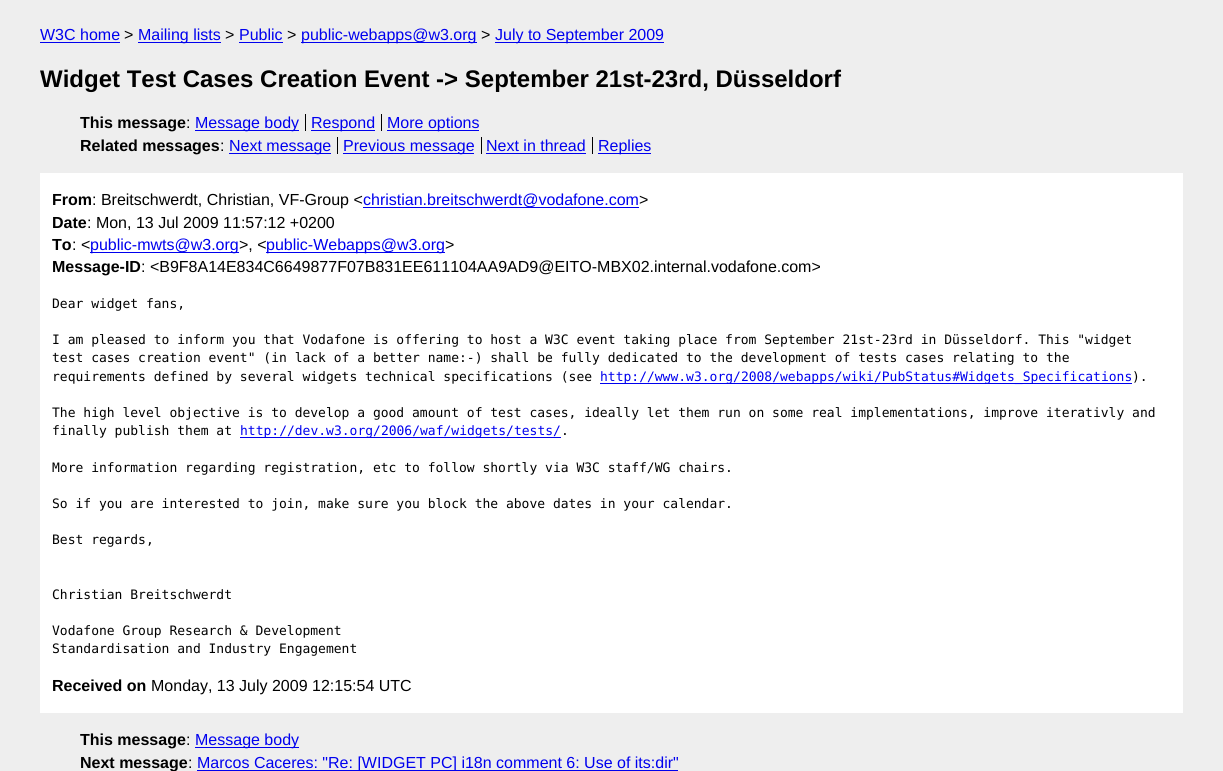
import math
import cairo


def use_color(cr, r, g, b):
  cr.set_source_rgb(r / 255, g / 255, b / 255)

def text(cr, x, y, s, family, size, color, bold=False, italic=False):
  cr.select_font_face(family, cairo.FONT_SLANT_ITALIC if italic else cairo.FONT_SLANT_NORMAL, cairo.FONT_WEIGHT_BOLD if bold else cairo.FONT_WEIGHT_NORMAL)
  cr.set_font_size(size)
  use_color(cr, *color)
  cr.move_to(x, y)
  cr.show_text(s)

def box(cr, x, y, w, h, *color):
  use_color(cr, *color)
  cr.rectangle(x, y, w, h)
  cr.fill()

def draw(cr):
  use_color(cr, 238, 238, 238)
  cr.paint()
  box(cr, 40, 42, 80, 1, 0, 0, 238)
  box(cr, 138, 42, 83, 1, 0, 0, 238)
  box(cr, 239, 42, 44, 1, 0, 0, 238)
  box(cr, 301, 42, 176, 1, 0, 0, 238)
  box(cr, 495, 42, 169, 1, 0, 0, 238)
  box(cr, 195, 130, 104, 1, 0, 0, 238)
  box(cr, 305, 114, 1, 17, 0, 0, 0)
  box(cr, 311, 130, 64, 1, 0, 0, 238)
  box(cr, 381, 114, 1, 17, 0, 0, 0)
  box(cr, 387, 130, 92, 1, 0, 0, 238)
  box(cr, 229, 153, 102, 1, 0, 0, 238)
  box(cr, 337, 137, 1, 17, 0, 0, 0)
  box(cr, 343, 153, 131, 1, 0, 0, 238)
  box(cr, 481, 137, 1, 17, 0, 0, 0)
  box(cr, 592, 137, 1, 17, 0, 0, 0)
  box(cr, 486, 153, 100, 1, 0, 0, 238)
  box(cr, 598, 153, 53, 1, 0, 0, 238)
  box(cr, 40, 173, 1143, 540, 255, 255, 255)
  box(cr, 363, 207, 276, 1, 0, 0, 238)
  box(cr, 90, 252, 149, 1, 0, 0, 238)
  box(cr, 266, 252, 179, 1, 0, 0, 238)
  box(cr, 600, 383, 532, 1, 0, 0, 238)
  box(cr, 240, 437, 321, 1, 0, 0, 238)
  box(cr, 195, 747, 104, 1, 0, 0, 238)
  box(cr, 197, 770, 481, 1, 0, 0, 238)
  text(cr, 40, 40, "W3C home", "Liberation Sans", 16, (0, 0, 238))
  text(cr, 124, 40, ">", "Liberation Sans", 16, (0, 0, 0))
  text(cr, 138, 40, "Mailing lists", "Liberation Sans", 16, (0, 0, 238))
  text(cr, 225, 40, ">", "Liberation Sans", 16, (0, 0, 0))
  text(cr, 239, 40, "Public", "Liberation Sans", 16, (0, 0, 238))
  text(cr, 287, 40, ">", "Liberation Sans", 16, (0, 0, 0))
  text(cr, 301, 40, "public-webapps@w3.org", "Liberation Sans", 16, (0, 0, 238))
  text(cr, 481, 40, ">", "Liberation Sans", 16, (0, 0, 0))
  text(cr, 495, 40, "July to September 2009", "Liberation Sans", 16, (0, 0, 238))
  text(cr, 40, 87, "Widget Test Cases Creation Event -> September 21st-23rd, Düsseldorf", "Liberation Sans", 24, (0, 0, 0), bold=True)
  text(cr, 80, 128, "This message", "Liberation Sans", 16, (0, 0, 0), bold=True)
  text(cr, 186, 128, ":", "Liberation Sans", 16, (0, 0, 0))
  text(cr, 195, 128, "Message body", "Liberation Sans", 16, (0, 0, 238))
  text(cr, 311, 128, "Respond", "Liberation Sans", 16, (0, 0, 238))
  text(cr, 387, 128, "More options", "Liberation Sans", 16, (0, 0, 238))
  text(cr, 80, 151, "Related messages", "Liberation Sans", 16, (0, 0, 0), bold=True)
  text(cr, 220, 151, ":", "Liberation Sans", 16, (0, 0, 0))
  text(cr, 229, 151, "Next message", "Liberation Sans", 16, (0, 0, 238))
  text(cr, 343, 151, "Previous message", "Liberation Sans", 16, (0, 0, 238))
  text(cr, 486, 151, "Next in thread", "Liberation Sans", 16, (0, 0, 238))
  text(cr, 598, 151, "Replies", "Liberation Sans", 16, (0, 0, 238))
  text(cr, 52, 205, "From", "Liberation Sans", 16, (0, 0, 0), bold=True)
  text(cr, 92, 205, ": Breitschwerdt, Christian, VF-Group <", "Liberation Sans", 16, (0, 0, 0))
  text(cr, 363, 205, "christian.breitschwerdt@vodafone.com", "Liberation Sans", 16, (0, 0, 238))
  text(cr, 639, 205, ">", "Liberation Sans", 16, (0, 0, 0))
  text(cr, 52, 228, "Date", "Liberation Sans", 16, (0, 0, 0), bold=True)
  text(cr, 87, 228, ": Mon, 13 Jul 2009 11:57:12 +0200", "Liberation Sans", 16, (0, 0, 0))
  text(cr, 52, 250, "To", "Liberation Sans", 16, (0, 0, 0), bold=True)
  text(cr, 72, 250, ": <", "Liberation Sans", 16, (0, 0, 0))
  text(cr, 90, 250, "public-mwts@w3.org", "Liberation Sans", 16, (0, 0, 238))
  text(cr, 239, 250, ">, <", "Liberation Sans", 16, (0, 0, 0))
  text(cr, 266, 250, "public-Webapps@w3.org", "Liberation Sans", 16, (0, 0, 238))
  text(cr, 445, 250, ">", "Liberation Sans", 16, (0, 0, 0))
  text(cr, 52, 272, "Message-ID", "Liberation Sans", 16, (0, 0, 0), bold=True)
  text(cr, 141, 272, ": <B9F8A14E834C6649877F07B831EE611104AA9AD9@EITO-MBX02.internal.vodafone.com>", "Liberation Sans", 16, (0, 0, 0))
  text(cr, 52, 308, "Dear widget fans,", "DejaVu Sans Mono", 13, (0, 0, 0))
  text(cr, 52, 344, "I am pleased to inform you that Vodafone is offering to host a W3C event taking place from September 21st-23rd in Düsseldorf. This \"widget", "DejaVu Sans Mono", 13, (0, 0, 0))
  text(cr, 52, 362, "test cases creation event\" (in lack of a better name:-) shall be fully dedicated to the development of tests cases relating to the", "DejaVu Sans Mono", 13, (0, 0, 0))
  text(cr, 52, 381, "requirements defined by several widgets technical specifications (see", "DejaVu Sans Mono", 13, (0, 0, 0))
  text(cr, 600, 381, "http://www.w3.org/2008/webapps/wiki/PubStatus#Widgets_Specifications", "DejaVu Sans Mono", 13, (0, 0, 238))
  text(cr, 1132, 381, ").", "DejaVu Sans Mono", 13, (0, 0, 0))
  text(cr, 52, 417, "The high level objective is to develop a good amount of test cases, ideally let them run on some real implementations, improve iterativly and", "DejaVu Sans Mono", 13, (0, 0, 0))
  text(cr, 52, 435, "finally publish them at", "DejaVu Sans Mono", 13, (0, 0, 0))
  text(cr, 240, 435, "http://dev.w3.org/2006/waf/widgets/tests/", "DejaVu Sans Mono", 13, (0, 0, 238))
  text(cr, 561, 435, ".", "DejaVu Sans Mono", 13, (0, 0, 0))
  text(cr, 52, 472, "More information regarding registration, etc to follow shortly via W3C staff/WG chairs.", "DejaVu Sans Mono", 13, (0, 0, 0))
  text(cr, 52, 508, "So if you are interested to join, make sure you block the above dates in your calendar.", "DejaVu Sans Mono", 13, (0, 0, 0))
  text(cr, 52, 544, "Best regards,", "DejaVu Sans Mono", 13, (0, 0, 0))
  text(cr, 52, 599, "Christian Breitschwerdt", "DejaVu Sans Mono", 13, (0, 0, 0))
  text(cr, 52, 635, "Vodafone Group Research & Development", "DejaVu Sans Mono", 13, (0, 0, 0))
  text(cr, 52, 653, "Standardisation and Industry Engagement", "DejaVu Sans Mono", 13, (0, 0, 0))
  text(cr, 52, 691, "Received on", "Liberation Sans", 16, (0, 0, 0), bold=True)
  text(cr, 151, 691, "Monday, 13 July 2009 12:15:54 UTC", "Liberation Sans", 16, (0, 0, 0))
  text(cr, 80, 745, "This message", "Liberation Sans", 16, (0, 0, 0), bold=True)
  text(cr, 186, 745, ":", "Liberation Sans", 16, (0, 0, 0))
  text(cr, 195, 745, "Message body", "Liberation Sans", 16, (0, 0, 238))
  text(cr, 80, 768, "Next message", "Liberation Sans", 16, (0, 0, 0), bold=True)
  text(cr, 188, 768, ":", "Liberation Sans", 16, (0, 0, 0))
  text(cr, 197, 768, "Marcos Caceres: \"Re: [WIDGET PC] i18n comment 6: Use of its:dir\"", "Liberation Sans", 16, (0, 0, 238))


surface = cairo.ImageSurface(cairo.FORMAT_RGB24, 1223, 771)
cr = cairo.Context(surface)
options = cairo.FontOptions()
options.set_hint_metrics(cairo.HINT_METRICS_OFF)
options.set_hint_style(cairo.HINT_STYLE_NONE)
cr.set_font_options(options)
cr.set_miter_limit(4)
draw(cr)
surface.write_to_png("out.png")
